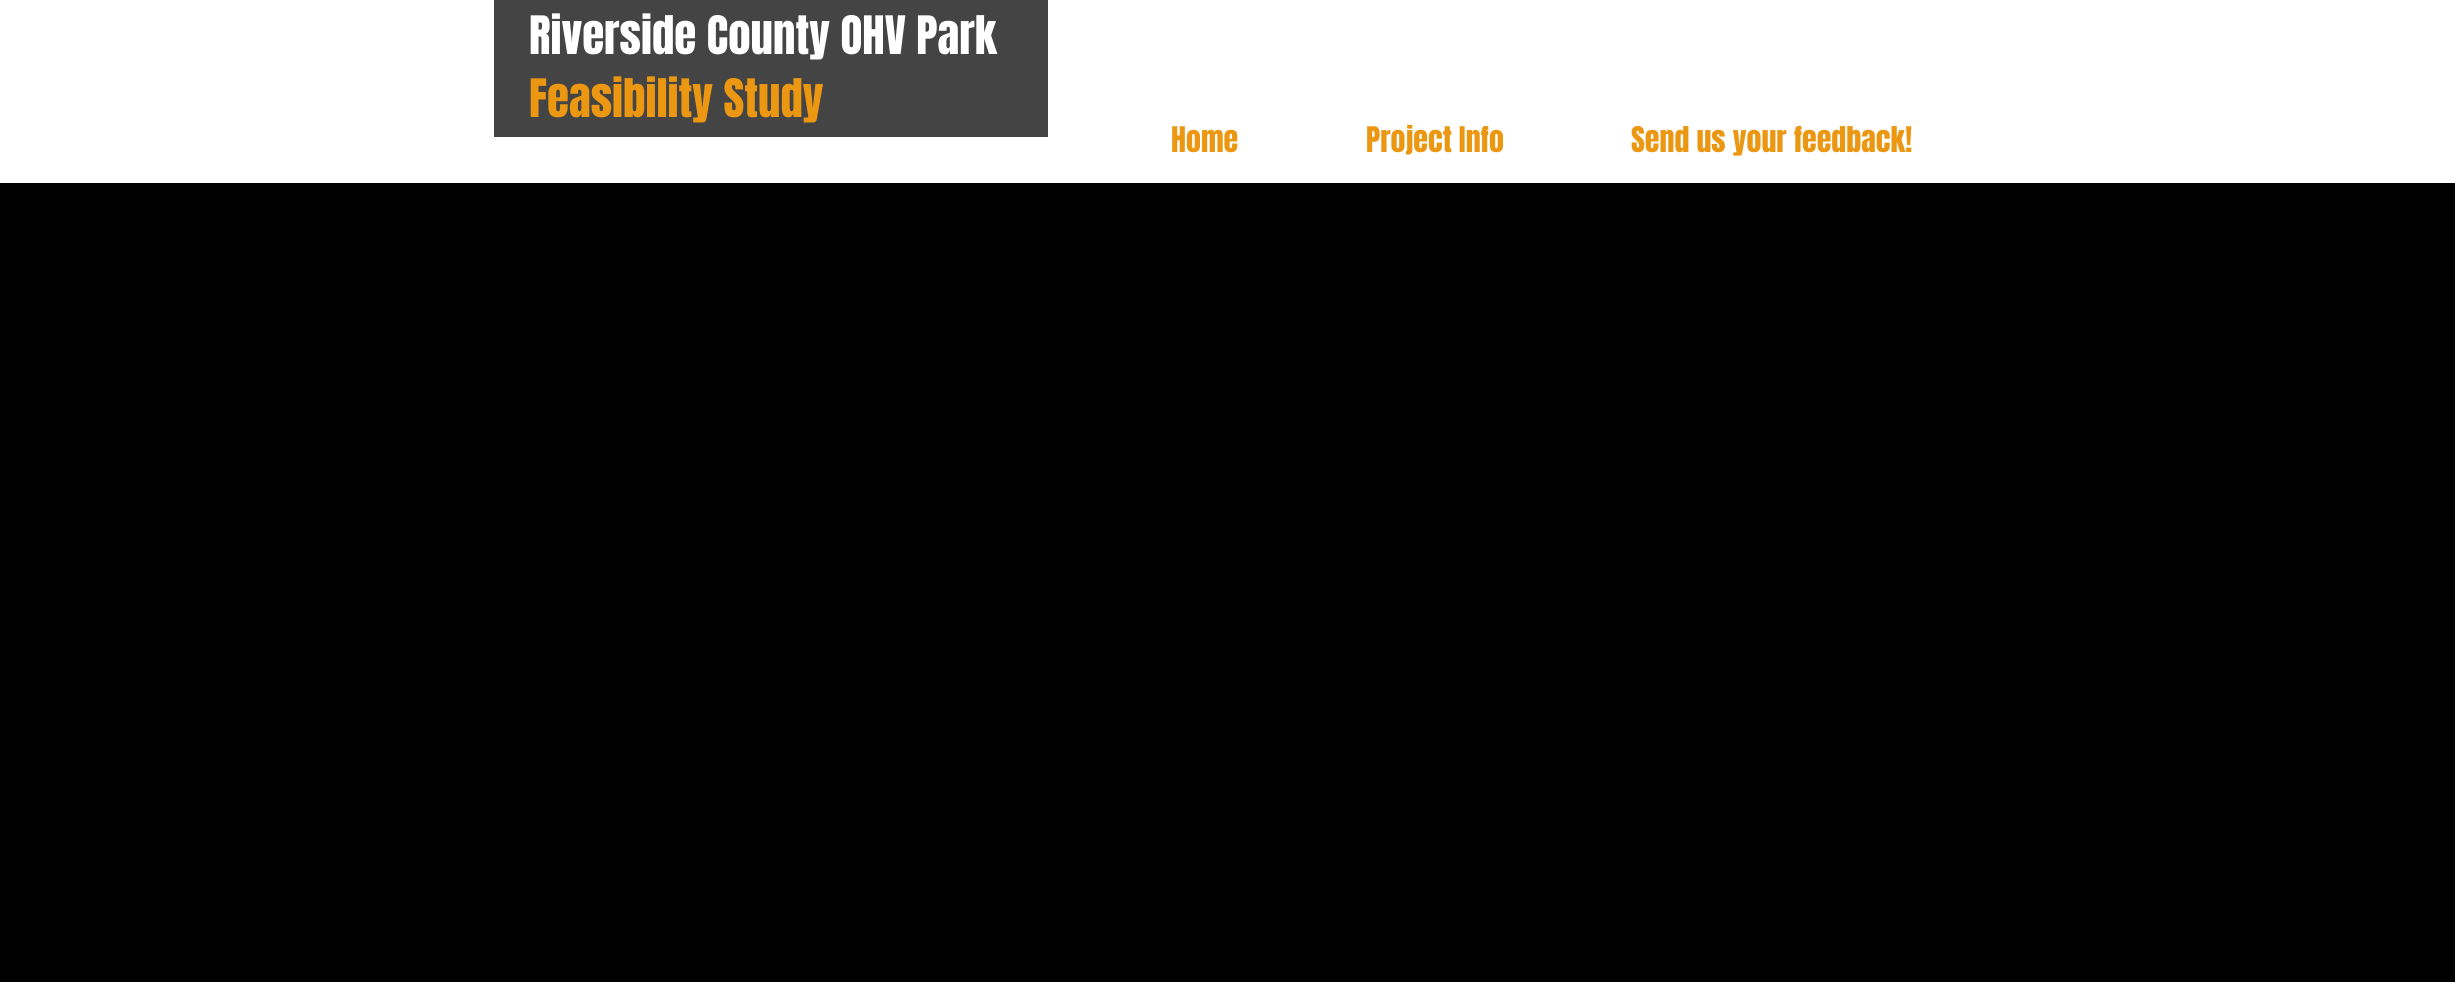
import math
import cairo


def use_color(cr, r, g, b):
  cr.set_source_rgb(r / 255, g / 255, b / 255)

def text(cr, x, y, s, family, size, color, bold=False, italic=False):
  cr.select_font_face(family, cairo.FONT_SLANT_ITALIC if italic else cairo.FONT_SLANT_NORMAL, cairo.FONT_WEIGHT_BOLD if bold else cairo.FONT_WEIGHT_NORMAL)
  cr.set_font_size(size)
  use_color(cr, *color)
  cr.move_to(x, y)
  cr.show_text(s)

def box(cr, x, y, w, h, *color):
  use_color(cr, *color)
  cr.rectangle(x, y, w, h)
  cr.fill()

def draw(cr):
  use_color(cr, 255, 255, 255)
  cr.paint()
  box(cr, 494, 0, 554, 137, 68, 68, 68)
  box(cr, 0, 183, 2455, 799, 0, 0, 0)
  text(cr, 529, 54, "Riverside County OHV Park", "Anton", 45, (255, 255, 255))
  text(cr, 529, 117, "Feasibility Study", "Anton", 45, (236, 151, 18))
  text(cr, 1171, 152, "Home", "Anton", 30, (236, 151, 18))
  text(cr, 1366, 152, "Project Info", "Anton", 30, (236, 151, 18))
  text(cr, 1631, 152, "Send us your feedback!", "Anton", 30, (236, 151, 18))


surface = cairo.ImageSurface(cairo.FORMAT_RGB24, 2455, 982)
cr = cairo.Context(surface)
options = cairo.FontOptions()
options.set_hint_metrics(cairo.HINT_METRICS_OFF)
options.set_hint_style(cairo.HINT_STYLE_NONE)
cr.set_font_options(options)
cr.set_miter_limit(4)
draw(cr)
surface.write_to_png("out.png")
